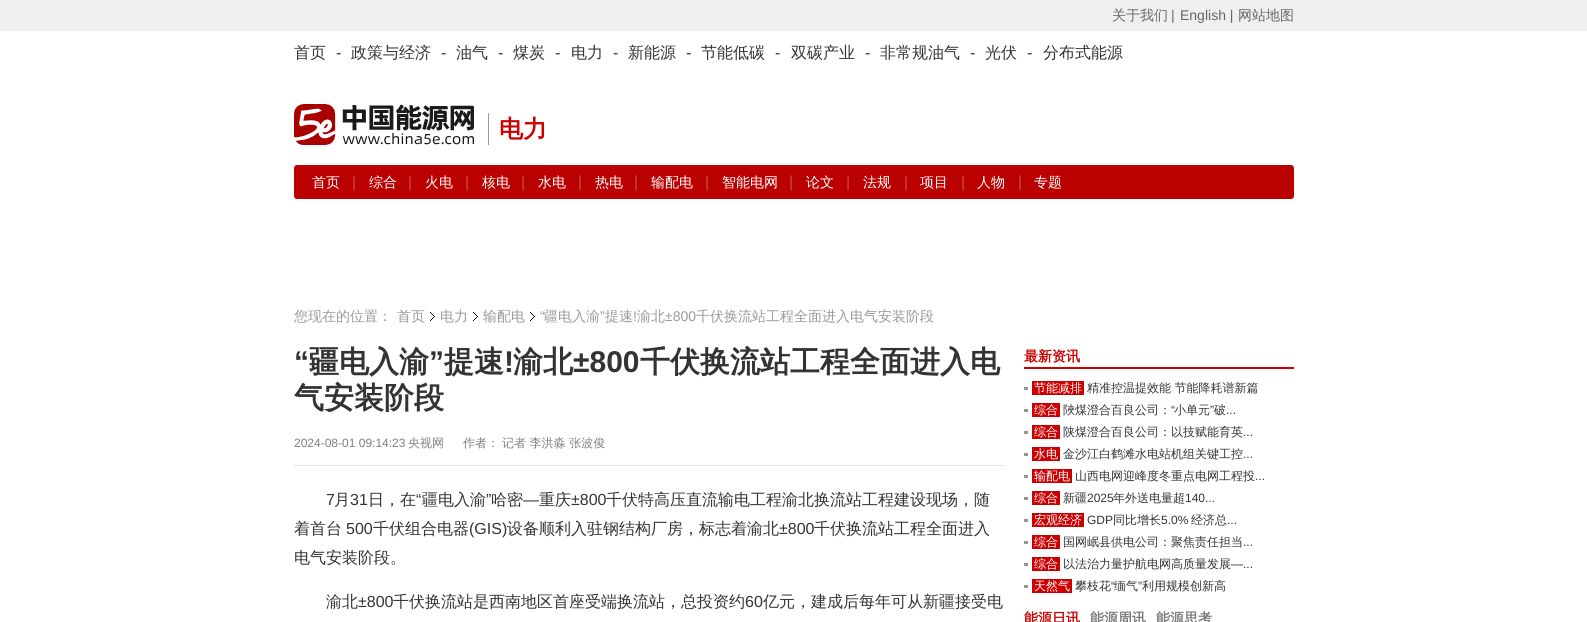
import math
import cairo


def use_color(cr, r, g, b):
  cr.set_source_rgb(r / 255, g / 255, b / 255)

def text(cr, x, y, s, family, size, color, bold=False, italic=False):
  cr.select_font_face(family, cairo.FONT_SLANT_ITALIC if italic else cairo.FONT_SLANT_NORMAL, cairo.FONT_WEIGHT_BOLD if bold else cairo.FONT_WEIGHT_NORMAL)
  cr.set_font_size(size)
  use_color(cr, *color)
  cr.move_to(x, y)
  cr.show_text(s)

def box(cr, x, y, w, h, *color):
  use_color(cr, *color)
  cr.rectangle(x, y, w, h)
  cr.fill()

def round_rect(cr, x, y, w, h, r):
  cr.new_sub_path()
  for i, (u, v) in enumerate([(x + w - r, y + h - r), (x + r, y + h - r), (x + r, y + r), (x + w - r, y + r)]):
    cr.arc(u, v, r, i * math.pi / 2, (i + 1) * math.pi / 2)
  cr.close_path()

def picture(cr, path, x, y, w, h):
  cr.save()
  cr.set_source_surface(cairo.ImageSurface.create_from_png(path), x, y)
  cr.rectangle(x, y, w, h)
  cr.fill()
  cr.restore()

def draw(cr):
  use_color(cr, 255, 255, 255)
  cr.paint()
  box(cr, 0, 0, 1587, 31, 239, 239, 239)
  picture(cr, "img_01.png", 294, 104, 180, 41)
  box(cr, 488, 113, 1, 32, 153, 153, 153)
  use_color(cr, 187, 0, 0)
  round_rect(cr, 294, 165, 1000, 34, 3)
  cr.fill()
  picture(cr, "img_02.png", 430, 312, 5, 9)
  picture(cr, "img_02.png", 473, 312, 5, 9)
  picture(cr, "img_02.png", 530, 312, 5, 9)
  box(cr, 294, 465, 710, 1, 229, 229, 229)
  box(cr, 1024, 367, 270, 2, 204, 0, 0)
  box(cr, 1024, 387, 4, 3, 148, 148, 148)
  box(cr, 1032, 381, 52, 14, 204, 0, 0)
  box(cr, 1024, 409, 4, 3, 148, 148, 148)
  box(cr, 1032, 403, 28, 14, 204, 0, 0)
  box(cr, 1024, 431, 4, 3, 148, 148, 148)
  box(cr, 1032, 425, 28, 14, 204, 0, 0)
  box(cr, 1024, 453, 4, 3, 148, 148, 148)
  box(cr, 1032, 447, 28, 14, 204, 0, 0)
  box(cr, 1024, 475, 4, 3, 148, 148, 148)
  box(cr, 1032, 469, 40, 14, 204, 0, 0)
  box(cr, 1024, 497, 4, 3, 148, 148, 148)
  box(cr, 1032, 491, 28, 14, 204, 0, 0)
  box(cr, 1024, 519, 4, 3, 148, 148, 148)
  box(cr, 1032, 513, 52, 14, 204, 0, 0)
  box(cr, 1024, 541, 4, 3, 148, 148, 148)
  box(cr, 1032, 535, 28, 14, 204, 0, 0)
  box(cr, 1024, 563, 4, 3, 148, 148, 148)
  box(cr, 1032, 557, 28, 14, 204, 0, 0)
  box(cr, 1024, 585, 4, 3, 148, 148, 148)
  box(cr, 1032, 579, 40, 14, 204, 0, 0)
  text(cr, 1112, 20, "关于我们", "WenQuanYi Zen Hei Medium", 14, (102, 102, 102))
  text(cr, 1171, 20, "|", "Liberation Sans", 14, (102, 102, 102))
  text(cr, 1180, 20, "English |", "Liberation Sans", 14, (102, 102, 102))
  text(cr, 1238, 20, "网站地图", "WenQuanYi Zen Hei Medium", 14, (102, 102, 102))
  text(cr, 294, 58, "首页", "WenQuanYi Zen Hei Medium", 16, (51, 51, 51))
  text(cr, 336, 58, "-", "Liberation Sans", 16, (51, 51, 51))
  text(cr, 351, 58, "政策与经济", "WenQuanYi Zen Hei Medium", 16, (51, 51, 51))
  text(cr, 441, 58, "-", "Liberation Sans", 16, (51, 51, 51))
  text(cr, 456, 58, "油气", "WenQuanYi Zen Hei Medium", 16, (51, 51, 51))
  text(cr, 498, 58, "-", "Liberation Sans", 16, (51, 51, 51))
  text(cr, 513, 58, "煤炭", "WenQuanYi Zen Hei Medium", 16, (51, 51, 51))
  text(cr, 555, 58, "-", "Liberation Sans", 16, (51, 51, 51))
  text(cr, 571, 58, "电力", "WenQuanYi Zen Hei Medium", 16, (51, 51, 51))
  text(cr, 613, 58, "-", "Liberation Sans", 16, (51, 51, 51))
  text(cr, 628, 58, "新能源", "WenQuanYi Zen Hei Medium", 16, (51, 51, 51))
  text(cr, 686, 58, "-", "Liberation Sans", 16, (51, 51, 51))
  text(cr, 701, 58, "节能低碳", "WenQuanYi Zen Hei Medium", 16, (51, 51, 51))
  text(cr, 775, 58, "-", "Liberation Sans", 16, (51, 51, 51))
  text(cr, 791, 58, "双碳产业", "WenQuanYi Zen Hei Medium", 16, (51, 51, 51))
  text(cr, 865, 58, "-", "Liberation Sans", 16, (51, 51, 51))
  text(cr, 880, 58, "非常规油气", "WenQuanYi Zen Hei Medium", 16, (51, 51, 51))
  text(cr, 970, 58, "-", "Liberation Sans", 16, (51, 51, 51))
  text(cr, 985, 58, "光伏", "WenQuanYi Zen Hei Medium", 16, (51, 51, 51))
  text(cr, 1027, 58, "-", "Liberation Sans", 16, (51, 51, 51))
  text(cr, 1043, 58, "分布式能源", "WenQuanYi Zen Hei Medium", 16, (51, 51, 51))
  text(cr, 499, 137, "电力", "WenQuanYi Zen Hei", 24, (204, 0, 0), bold=True)
  text(cr, 312, 187, "首页", "WenQuanYi Zen Hei Medium", 14, (255, 255, 255))
  text(cr, 352, 187, "|", "Liberation Sans", 16, (202, 71, 71))
  text(cr, 369, 187, "综合", "WenQuanYi Zen Hei Medium", 14, (255, 255, 255))
  text(cr, 408, 187, "|", "Liberation Sans", 16, (202, 71, 71))
  text(cr, 425, 187, "火电", "WenQuanYi Zen Hei Medium", 14, (255, 255, 255))
  text(cr, 465, 187, "|", "Liberation Sans", 16, (202, 71, 71))
  text(cr, 482, 187, "核电", "WenQuanYi Zen Hei Medium", 14, (255, 255, 255))
  text(cr, 521, 187, "|", "Liberation Sans", 16, (202, 71, 71))
  text(cr, 538, 187, "水电", "WenQuanYi Zen Hei Medium", 14, (255, 255, 255))
  text(cr, 578, 187, "|", "Liberation Sans", 16, (202, 71, 71))
  text(cr, 595, 187, "热电", "WenQuanYi Zen Hei Medium", 14, (255, 255, 255))
  text(cr, 634, 187, "|", "Liberation Sans", 16, (202, 71, 71))
  text(cr, 651, 187, "输配电", "WenQuanYi Zen Hei Medium", 14, (255, 255, 255))
  text(cr, 705, 187, "|", "Liberation Sans", 16, (202, 71, 71))
  text(cr, 722, 187, "智能电网", "WenQuanYi Zen Hei Medium", 14, (255, 255, 255))
  text(cr, 789, 187, "|", "Liberation Sans", 16, (202, 71, 71))
  text(cr, 806, 187, "论文", "WenQuanYi Zen Hei Medium", 14, (255, 255, 255))
  text(cr, 846, 187, "|", "Liberation Sans", 16, (202, 71, 71))
  text(cr, 863, 187, "法规", "WenQuanYi Zen Hei Medium", 14, (255, 255, 255))
  text(cr, 904, 187, "|", "Liberation Sans", 16, (202, 71, 71))
  text(cr, 920, 187, "项目", "WenQuanYi Zen Hei Medium", 14, (255, 255, 255))
  text(cr, 961, 187, "|", "Liberation Sans", 16, (202, 71, 71))
  text(cr, 977, 187, "人物", "WenQuanYi Zen Hei Medium", 14, (255, 255, 255))
  text(cr, 1018, 187, "|", "Liberation Sans", 16, (202, 71, 71))
  text(cr, 1034, 187, "专题", "WenQuanYi Zen Hei Medium", 14, (255, 255, 255))
  text(cr, 294, 321, "您现在的位置：", "WenQuanYi Zen Hei Medium", 14, (153, 153, 153))
  text(cr, 397, 321, "首页", "WenQuanYi Zen Hei Medium", 14, (153, 153, 153))
  text(cr, 440, 321, "电力", "WenQuanYi Zen Hei Medium", 14, (153, 153, 153))
  text(cr, 483, 321, "输配电", "WenQuanYi Zen Hei Medium", 14, (153, 153, 153))
  text(cr, 540, 321, "“", "Liberation Sans", 14, (153, 153, 153))
  text(cr, 544, 321, "疆电入渝", "WenQuanYi Zen Hei Medium", 14, (153, 153, 153))
  text(cr, 600, 321, "”", "Liberation Sans", 14, (153, 153, 153))
  text(cr, 605, 321, "提速", "WenQuanYi Zen Hei Medium", 14, (153, 153, 153))
  text(cr, 633, 321, "!", "Liberation Sans", 14, (153, 153, 153))
  text(cr, 637, 321, "渝北", "WenQuanYi Zen Hei Medium", 14, (153, 153, 153))
  text(cr, 665, 321, "±800", "Liberation Sans", 14, (153, 153, 153))
  text(cr, 696, 321, "千伏换流站工程全面进入电气安装阶段", "WenQuanYi Zen Hei Medium", 14, (153, 153, 153))
  text(cr, 294, 372, "“", "Liberation Sans", 30, (51, 51, 51), bold=True)
  text(cr, 309, 372, "疆电入渝", "WenQuanYi Zen Hei", 30, (51, 51, 51), bold=True)
  text(cr, 429, 372, "”", "Liberation Sans", 30, (51, 51, 51), bold=True)
  text(cr, 444, 372, "提速", "WenQuanYi Zen Hei", 30, (51, 51, 51), bold=True)
  text(cr, 504, 372, "!", "Liberation Sans", 30, (51, 51, 51), bold=True)
  text(cr, 513, 372, "渝北", "WenQuanYi Zen Hei", 30, (51, 51, 51), bold=True)
  text(cr, 573, 372, "±800", "Liberation Sans", 30, (51, 51, 51), bold=True)
  text(cr, 640, 372, "千伏换流站工程全面进入电", "WenQuanYi Zen Hei", 30, (51, 51, 51), bold=True)
  text(cr, 294, 408, "气安装阶段", "WenQuanYi Zen Hei", 30, (51, 51, 51), bold=True)
  text(cr, 294, 447, "2024-08-01 09:14:23", "Liberation Sans", 12, (127, 127, 127))
  text(cr, 408, 447, "央视网", "WenQuanYi Zen Hei Medium", 12, (127, 127, 127))
  text(cr, 463, 447, "作者：", "WenQuanYi Zen Hei Medium", 12, (127, 127, 127))
  text(cr, 502, 447, "记者 李洪淼 张波俊", "WenQuanYi Zen Hei Medium", 12, (127, 127, 127))
  text(cr, 326, 505, "7", "Liberation Sans", 16, (51, 51, 51))
  text(cr, 334, 505, "月", "WenQuanYi Zen Hei Medium", 16, (51, 51, 51))
  text(cr, 350, 505, "31", "Liberation Sans", 16, (51, 51, 51))
  text(cr, 368, 505, "日，在", "WenQuanYi Zen Hei Medium", 16, (51, 51, 51))
  text(cr, 416, 505, "“", "Liberation Sans", 16, (51, 51, 51))
  text(cr, 422, 505, "疆电入渝", "WenQuanYi Zen Hei Medium", 16, (51, 51, 51))
  text(cr, 486, 505, "”", "Liberation Sans", 16, (51, 51, 51))
  text(cr, 491, 505, "哈密", "WenQuanYi Zen Hei Medium", 16, (51, 51, 51))
  text(cr, 539, 505, "重庆", "WenQuanYi Zen Hei Medium", 16, (51, 51, 51))
  text(cr, 571, 505, "±800", "Liberation Sans", 16, (51, 51, 51))
  text(cr, 606, 505, "千伏特高压直流输电工程渝北换流站工程建设现场，随", "WenQuanYi Zen Hei Medium", 16, (51, 51, 51))
  text(cr, 523, 505, "—", "Liberation Sans", 16, (51, 51, 51))
  text(cr, 294, 534, "着首台", "WenQuanYi Zen Hei Medium", 16, (51, 51, 51))
  text(cr, 346, 534, "500", "Liberation Sans", 16, (51, 51, 51))
  text(cr, 373, 534, "千伏组合电器", "WenQuanYi Zen Hei Medium", 16, (51, 51, 51))
  text(cr, 469, 534, "(GIS)", "Liberation Sans", 16, (51, 51, 51))
  text(cr, 507, 534, "设备顺利入驻钢结构厂房，标志着渝北", "WenQuanYi Zen Hei Medium", 16, (51, 51, 51))
  text(cr, 779, 534, "±800", "Liberation Sans", 16, (51, 51, 51))
  text(cr, 814, 534, "千伏换流站工程全面进入", "WenQuanYi Zen Hei Medium", 16, (51, 51, 51))
  text(cr, 294, 563, "电气安装阶段。", "WenQuanYi Zen Hei Medium", 16, (51, 51, 51))
  text(cr, 326, 607, "渝北", "WenQuanYi Zen Hei Medium", 16, (51, 51, 51))
  text(cr, 358, 607, "±800", "Liberation Sans", 16, (51, 51, 51))
  text(cr, 393, 607, "千伏换流站是西南地区首座受端换流站，总投资约", "WenQuanYi Zen Hei Medium", 16, (51, 51, 51))
  text(cr, 745, 607, "60", "Liberation Sans", 16, (51, 51, 51))
  text(cr, 763, 607, "亿元，建成后每年可从新疆接受电", "WenQuanYi Zen Hei Medium", 16, (51, 51, 51))
  text(cr, 1024, 361, "最新资讯", "WenQuanYi Zen Hei", 14, (204, 0, 0), bold=True)
  text(cr, 1034, 392, "节能减排", "WenQuanYi Zen Hei Medium", 12, (255, 255, 255))
  text(cr, 1087, 392, "精准控温提效能 节能降耗谱新篇", "WenQuanYi Zen Hei Medium", 12, (51, 51, 51))
  text(cr, 1034, 414, "综合", "WenQuanYi Zen Hei Medium", 12, (255, 255, 255))
  text(cr, 1063, 414, "陜煤澄合百良公司：", "WenQuanYi Zen Hei Medium", 12, (51, 51, 51))
  text(cr, 1171, 414, "“", "Liberation Sans", 12, (51, 51, 51))
  text(cr, 1174, 414, "小单元", "WenQuanYi Zen Hei Medium", 12, (51, 51, 51))
  text(cr, 1210, 414, "”", "Liberation Sans", 12, (51, 51, 51))
  text(cr, 1214, 414, "破", "WenQuanYi Zen Hei Medium", 12, (51, 51, 51))
  text(cr, 1226, 414, "...", "Liberation Sans", 12, (51, 51, 51))
  text(cr, 1034, 436, "综合", "WenQuanYi Zen Hei Medium", 12, (255, 255, 255))
  text(cr, 1063, 436, "陕煤澄合百良公司：以技赋能育英", "WenQuanYi Zen Hei Medium", 12, (51, 51, 51))
  text(cr, 1243, 436, "...", "Liberation Sans", 12, (51, 51, 51))
  text(cr, 1034, 458, "水电", "WenQuanYi Zen Hei Medium", 12, (255, 255, 255))
  text(cr, 1063, 458, "金沙江白鹤滩水电站机组关键工控", "WenQuanYi Zen Hei Medium", 12, (51, 51, 51))
  text(cr, 1243, 458, "...", "Liberation Sans", 12, (51, 51, 51))
  text(cr, 1034, 480, "输配电", "WenQuanYi Zen Hei Medium", 12, (255, 255, 255))
  text(cr, 1075, 480, "山西电网迎峰度冬重点电网工程投", "WenQuanYi Zen Hei Medium", 12, (51, 51, 51))
  text(cr, 1255, 480, "...", "Liberation Sans", 12, (51, 51, 51))
  text(cr, 1034, 502, "综合", "WenQuanYi Zen Hei Medium", 12, (255, 255, 255))
  text(cr, 1063, 502, "新疆", "WenQuanYi Zen Hei Medium", 12, (51, 51, 51))
  text(cr, 1087, 502, "2025", "Liberation Sans", 12, (51, 51, 51))
  text(cr, 1113, 502, "年外送电量超", "WenQuanYi Zen Hei Medium", 12, (51, 51, 51))
  text(cr, 1185, 502, "140...", "Liberation Sans", 12, (51, 51, 51))
  text(cr, 1034, 524, "宏观经济", "WenQuanYi Zen Hei Medium", 12, (255, 255, 255))
  text(cr, 1087, 524, "GDP", "Liberation Sans", 12, (51, 51, 51))
  text(cr, 1113, 524, "同比增长", "WenQuanYi Zen Hei Medium", 12, (51, 51, 51))
  text(cr, 1161, 524, "5.0%", "Liberation Sans", 12, (51, 51, 51))
  text(cr, 1191, 524, "经济总", "WenQuanYi Zen Hei Medium", 12, (51, 51, 51))
  text(cr, 1227, 524, "...", "Liberation Sans", 12, (51, 51, 51))
  text(cr, 1034, 546, "综合", "WenQuanYi Zen Hei Medium", 12, (255, 255, 255))
  text(cr, 1063, 546, "国网岷县供电公司：聚焦责任担当", "WenQuanYi Zen Hei Medium", 12, (51, 51, 51))
  text(cr, 1243, 546, "...", "Liberation Sans", 12, (51, 51, 51))
  text(cr, 1034, 568, "综合", "WenQuanYi Zen Hei Medium", 12, (255, 255, 255))
  text(cr, 1063, 568, "以法治力量护航电网高质量发展", "WenQuanYi Zen Hei Medium", 12, (51, 51, 51))
  text(cr, 1231, 568, "—...", "Liberation Sans", 12, (51, 51, 51))
  text(cr, 1034, 590, "天然气", "WenQuanYi Zen Hei Medium", 12, (255, 255, 255))
  text(cr, 1075, 590, "攀枝花", "WenQuanYi Zen Hei Medium", 12, (51, 51, 51))
  text(cr, 1111, 590, "“", "Liberation Sans", 12, (51, 51, 51))
  text(cr, 1114, 590, "缅气", "WenQuanYi Zen Hei Medium", 12, (51, 51, 51))
  text(cr, 1138, 590, "”", "Liberation Sans", 12, (51, 51, 51))
  text(cr, 1142, 590, "利用规模创新高", "WenQuanYi Zen Hei Medium", 12, (51, 51, 51))
  text(cr, 1024, 623, "能源日讯", "WenQuanYi Zen Hei", 14, (204, 0, 0), bold=True)
  text(cr, 1090, 623, "能源周讯", "WenQuanYi Zen Hei", 14, (121, 121, 121), bold=True)
  text(cr, 1156, 623, "能源思考", "WenQuanYi Zen Hei", 14, (121, 121, 121), bold=True)


surface = cairo.ImageSurface(cairo.FORMAT_RGB24, 1587, 622)
cr = cairo.Context(surface)
options = cairo.FontOptions()
options.set_hint_metrics(cairo.HINT_METRICS_OFF)
options.set_hint_style(cairo.HINT_STYLE_NONE)
cr.set_font_options(options)
cr.set_miter_limit(4)
draw(cr)
surface.write_to_png("out.png")
